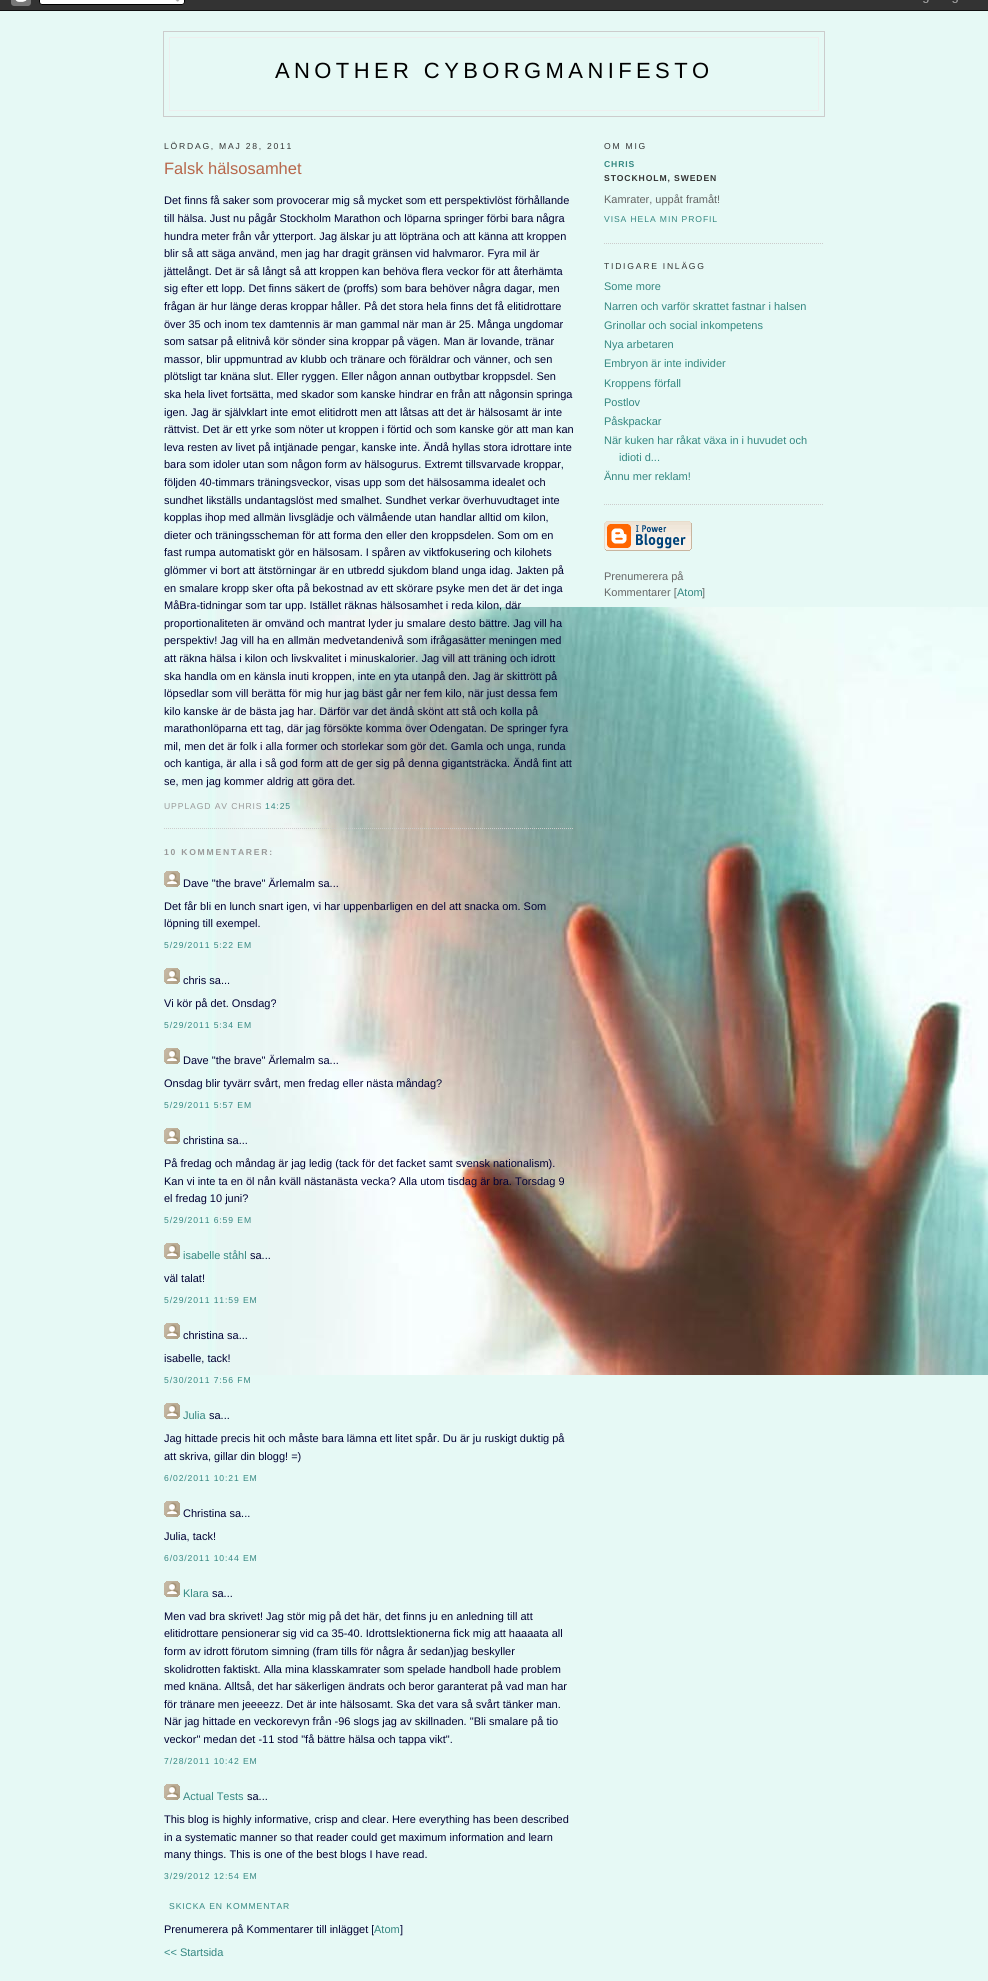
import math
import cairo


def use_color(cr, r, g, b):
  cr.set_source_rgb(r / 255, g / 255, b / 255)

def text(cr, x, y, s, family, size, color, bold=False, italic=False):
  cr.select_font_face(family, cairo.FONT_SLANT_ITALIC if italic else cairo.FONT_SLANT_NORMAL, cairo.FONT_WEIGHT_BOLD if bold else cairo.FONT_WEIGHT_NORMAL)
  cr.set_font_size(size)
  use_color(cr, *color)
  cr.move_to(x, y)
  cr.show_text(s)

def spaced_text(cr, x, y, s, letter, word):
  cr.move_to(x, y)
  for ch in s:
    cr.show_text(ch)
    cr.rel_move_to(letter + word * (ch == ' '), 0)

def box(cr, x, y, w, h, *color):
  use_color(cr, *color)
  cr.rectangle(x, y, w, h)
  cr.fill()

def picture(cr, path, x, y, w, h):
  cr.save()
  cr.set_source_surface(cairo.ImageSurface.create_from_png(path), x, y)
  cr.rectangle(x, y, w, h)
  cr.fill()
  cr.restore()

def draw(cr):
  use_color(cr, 230, 249, 245)
  cr.paint()
  picture(cr, "img_01.png", 208, 607, 780, 768)
  picture(cr, "img_02.png", 0, 0, 988, 11)
  cr.rectangle(163.5, 31.5, 661, 85)
  use_color(cr, 204, 204, 204)
  cr.set_line_width(1)
  cr.stroke()
  box(cr, 169, 37, 650, 1, 238, 238, 238)
  box(cr, 818, 37, 1, 74, 238, 238, 238)
  box(cr, 169, 37, 1, 53, 238, 238, 238)
  box(cr, 169, 110, 650, 1, 238, 238, 238)
  box(cr, 169, 90, 1, 21, 238, 238, 238)
  cr.new_path()
  cr.move_to(164, 828.5)
  cr.line_to(574, 828.5)
  use_color(cr, 204, 204, 204)
  cr.set_dash([1, 1])
  cr.stroke()
  picture(cr, "img_03.png", 164, 871, 16, 16)
  picture(cr, "img_03.png", 164, 968, 16, 16)
  picture(cr, "img_03.png", 164, 1048, 16, 16)
  picture(cr, "img_03.png", 164, 1128, 16, 16)
  picture(cr, "img_03.png", 164, 1243, 16, 16)
  picture(cr, "img_03.png", 164, 1323, 16, 16)
  picture(cr, "img_03.png", 164, 1403, 16, 16)
  picture(cr, "img_03.png", 164, 1501, 16, 16)
  picture(cr, "img_03.png", 164, 1581, 16, 16)
  picture(cr, "img_03.png", 164, 1784, 16, 16)
  cr.new_path()
  cr.move_to(604, 243.5)
  cr.line_to(824, 243.5)
  cr.stroke()
  cr.new_path()
  cr.move_to(604, 504.5)
  cr.line_to(824, 504.5)
  cr.stroke()
  picture(cr, "img_04.png", 604, 521, 88, 30)
  cr.select_font_face("Liberation Sans")
  cr.set_font_size(22)
  use_color(cr, 0, 0, 0)
  spaced_text(cr, 275, 78, "ANOTHER CYBORGMANIFESTO", 4.4, 0)
  cr.set_font_size(8.6)
  use_color(cr, 51, 51, 51)
  spaced_text(cr, 164, 149, "LÖRDAG, MAJ 28, 2011", 1.75, 0)
  text(cr, 164, 174, "Falsk hälsosamhet", "Liberation Sans", 16.5, (183, 103, 75))
  text(cr, 164, 204, "Det finns få saker som provocerar mig så mycket som ett perspektivlöst förhållande", "Liberation Sans", 11, (0, 0, 51))
  text(cr, 164, 222, "till hälsa. Just nu pågår Stockholm Marathon och löparna springer förbi bara några", "Liberation Sans", 11, (0, 0, 51))
  text(cr, 164, 240, "hundra meter från vår ytterport. Jag älskar ju att löpträna och att känna att kroppen", "Liberation Sans", 11, (0, 0, 51))
  text(cr, 164, 257, "blir så att säga använd, men jag har dragit gränsen vid halvmaror. Fyra mil är", "Liberation Sans", 11, (0, 0, 51))
  text(cr, 164, 275, "jättelångt. Det är så långt så att kroppen kan behöva flera veckor för att återhämta", "Liberation Sans", 11, (0, 0, 51))
  text(cr, 164, 292, "sig efter ett lopp. Det finns säkert de (proffs) som bara behöver några dagar, men", "Liberation Sans", 11, (0, 0, 51))
  text(cr, 164, 310, "frågan är hur länge deras kroppar håller. På det stora hela finns det få elitidrottare", "Liberation Sans", 11, (0, 0, 51))
  text(cr, 164, 328, "över 35 och inom tex damtennis är man gammal när man är 25. Många ungdomar", "Liberation Sans", 11, (0, 0, 51))
  text(cr, 164, 345, "som satsar på elitnivå kör sönder sina kroppar på vägen. Man är lovande, tränar", "Liberation Sans", 11, (0, 0, 51))
  text(cr, 164, 363, "massor, blir uppmuntrad av klubb och tränare och föräldrar och vänner, och sen", "Liberation Sans", 11, (0, 0, 51))
  text(cr, 164, 380, "plötsligt tar knäna slut. Eller ryggen. Eller någon annan outbytbar kroppsdel. Sen", "Liberation Sans", 11, (0, 0, 51))
  text(cr, 164, 398, "ska hela livet fortsätta, med skador som kanske hindrar en från att någonsin springa", "Liberation Sans", 11, (0, 0, 51))
  text(cr, 164, 416, "igen. Jag är självklart inte emot elitidrott men att låtsas att det är hälsosamt är inte", "Liberation Sans", 11, (0, 0, 51))
  text(cr, 164, 433, "rättvist. Det är ett yrke som nöter ut kroppen i förtid och som kanske gör att man kan", "Liberation Sans", 11, (0, 0, 51))
  text(cr, 164, 451, "leva resten av livet på intjänade pengar, kanske inte. Ändå hyllas stora idrottare inte", "Liberation Sans", 11, (0, 0, 51))
  text(cr, 164, 468, "bara som idoler utan som någon form av hälsogurus. Extremt tillsvarvade kroppar,", "Liberation Sans", 11, (0, 0, 51))
  text(cr, 164, 486, "följden 40-timmars träningsveckor, visas upp som det hälsosamma idealet och", "Liberation Sans", 11, (0, 0, 51))
  text(cr, 164, 504, "sundhet likställs undantagslöst med smalhet. Sundhet verkar överhuvudtaget inte", "Liberation Sans", 11, (0, 0, 51))
  text(cr, 164, 521, "kopplas ihop med allmän livsglädje och välmående utan handlar alltid om kilon,", "Liberation Sans", 11, (0, 0, 51))
  text(cr, 164, 539, "dieter och träningsscheman för att forma den eller den kroppsdelen. Som om en", "Liberation Sans", 11, (0, 0, 51))
  text(cr, 164, 556, "fast rumpa automatiskt gör en hälsosam. I spåren av viktfokusering och kilohets", "Liberation Sans", 11, (0, 0, 51))
  text(cr, 164, 574, "glömmer vi bort att ätstörningar är en utbredd sjukdom bland unga idag. Jakten på", "Liberation Sans", 11, (0, 0, 51))
  text(cr, 164, 592, "en smalare kropp sker ofta på bekostnad av ett skörare psyke men det är det inga", "Liberation Sans", 11, (0, 0, 51))
  text(cr, 164, 609, "MåBra-tidningar som tar upp. Istället räknas hälsosamhet i reda kilon, där", "Liberation Sans", 11, (0, 0, 51))
  text(cr, 164, 627, "proportionaliteten är omvänd och mantrat lyder ju smalare desto bättre. Jag vill ha", "Liberation Sans", 11, (0, 0, 51))
  text(cr, 164, 644, "perspektiv! Jag vill ha en allmän medvetandenivå som ifrågasätter meningen med", "Liberation Sans", 11, (0, 0, 51))
  text(cr, 164, 662, "att räkna hälsa i kilon och livskvalitet i minuskalorier. Jag vill att träning och idrott", "Liberation Sans", 11, (0, 0, 51))
  text(cr, 164, 680, "ska handla om en känsla inuti kroppen, inte en yta utanpå den. Jag är skittrött på", "Liberation Sans", 11, (0, 0, 51))
  text(cr, 164, 697, "löpsedlar som vill berätta för mig hur jag bäst går ner fem kilo, när just dessa fem", "Liberation Sans", 11, (0, 0, 51))
  text(cr, 164, 715, "kilo kanske är de bästa jag har. Därför var det ändå skönt att stå och kolla på", "Liberation Sans", 11, (0, 0, 51))
  text(cr, 164, 732, "marathonlöparna ett tag, där jag försökte komma över Odengatan. De springer fyra", "Liberation Sans", 11, (0, 0, 51))
  text(cr, 164, 750, "mil, men det är folk i alla former och storlekar som gör det. Gamla och unga, runda", "Liberation Sans", 11, (0, 0, 51))
  text(cr, 164, 767, "och kantiga, är alla i så god form att de ger sig på denna gigantsträcka. Ändå fint att", "Liberation Sans", 11, (0, 0, 51))
  text(cr, 164, 785, "se, men jag kommer aldrig att göra det.", "Liberation Sans", 11, (0, 0, 51))
  cr.set_font_size(8.6)
  use_color(cr, 153, 153, 153)
  spaced_text(cr, 164, 809, "UPPLAGD AV CHRIS", 0.9, 0)
  use_color(cr, 52, 135, 129)
  spaced_text(cr, 265, 809, "14:25", 0.9, 0)
  cr.select_font_face("Liberation Sans", cairo.FONT_SLANT_NORMAL, cairo.FONT_WEIGHT_BOLD)
  use_color(cr, 153, 153, 153)
  spaced_text(cr, 164, 855, "10 KOMMENTARER:", 1.75, 0)
  text(cr, 183, 887, "Dave \"the brave\" Ärlemalm sa...", "Liberation Sans", 11, (0, 0, 51))
  text(cr, 164, 910, "Det får bli en lunch snart igen, vi har uppenbarligen en del att snacka om. Som", "Liberation Sans", 11, (0, 0, 51))
  text(cr, 164, 927, "löpning till exempel.", "Liberation Sans", 11, (0, 0, 51))
  cr.set_font_size(8.6)
  use_color(cr, 52, 135, 129)
  spaced_text(cr, 164, 948, "5/29/2011 5:22 EM", 0.9, 0)
  text(cr, 183, 984, "chris sa...", "Liberation Sans", 11, (0, 0, 51))
  text(cr, 164, 1007, "Vi kör på det. Onsdag?", "Liberation Sans", 11, (0, 0, 51))
  cr.set_font_size(8.6)
  use_color(cr, 52, 135, 129)
  spaced_text(cr, 164, 1028, "5/29/2011 5:34 EM", 0.9, 0)
  text(cr, 183, 1064, "Dave \"the brave\" Ärlemalm sa...", "Liberation Sans", 11, (0, 0, 51))
  text(cr, 164, 1087, "Onsdag blir tyvärr svårt, men fredag eller nästa måndag?", "Liberation Sans", 11, (0, 0, 51))
  cr.set_font_size(8.6)
  use_color(cr, 52, 135, 129)
  spaced_text(cr, 164, 1108, "5/29/2011 5:57 EM", 0.9, 0)
  text(cr, 183, 1144, "christina sa...", "Liberation Sans", 11, (0, 0, 51))
  text(cr, 164, 1167, "På fredag och måndag är jag ledig (tack för det facket samt svensk nationalism).", "Liberation Sans", 11, (0, 0, 51))
  text(cr, 164, 1185, "Kan vi inte ta en öl nån kväll nästanästa vecka? Alla utom tisdag är bra. Torsdag 9", "Liberation Sans", 11, (0, 0, 51))
  text(cr, 164, 1202, "el fredag 10 juni?", "Liberation Sans", 11, (0, 0, 51))
  cr.set_font_size(8.6)
  use_color(cr, 52, 135, 129)
  spaced_text(cr, 164, 1223, "5/29/2011 6:59 EM", 0.9, 0)
  text(cr, 183, 1259, "isabelle ståhl", "Liberation Sans", 11, (52, 135, 129))
  text(cr, 250, 1259, "sa...", "Liberation Sans", 11, (0, 0, 51))
  text(cr, 164, 1282, "väl talat!", "Liberation Sans", 11, (0, 0, 51))
  cr.set_font_size(8.6)
  use_color(cr, 52, 135, 129)
  spaced_text(cr, 164, 1303, "5/29/2011 11:59 EM", 0.9, 0)
  text(cr, 183, 1339, "christina sa...", "Liberation Sans", 11, (0, 0, 51))
  text(cr, 164, 1362, "isabelle, tack!", "Liberation Sans", 11, (0, 0, 51))
  cr.set_font_size(8.6)
  use_color(cr, 52, 135, 129)
  spaced_text(cr, 164, 1383, "5/30/2011 7:56 FM", 0.9, 0)
  text(cr, 183, 1419, "Julia", "Liberation Sans", 11, (52, 135, 129))
  text(cr, 209, 1419, "sa...", "Liberation Sans", 11, (0, 0, 51))
  text(cr, 164, 1442, "Jag hittade precis hit och måste bara lämna ett litet spår. Du är ju ruskigt duktig på", "Liberation Sans", 11, (0, 0, 51))
  text(cr, 164, 1460, "att skriva, gillar din blogg! =)", "Liberation Sans", 11, (0, 0, 51))
  cr.set_font_size(8.6)
  use_color(cr, 52, 135, 129)
  spaced_text(cr, 164, 1481, "6/02/2011 10:21 EM", 0.9, 0)
  text(cr, 183, 1517, "Christina sa...", "Liberation Sans", 11, (0, 0, 51))
  text(cr, 164, 1540, "Julia, tack!", "Liberation Sans", 11, (0, 0, 51))
  cr.set_font_size(8.6)
  use_color(cr, 52, 135, 129)
  spaced_text(cr, 164, 1561, "6/03/2011 10:44 EM", 0.9, 0)
  text(cr, 183, 1597, "Klara", "Liberation Sans", 11, (52, 135, 129))
  text(cr, 212, 1597, "sa...", "Liberation Sans", 11, (0, 0, 51))
  text(cr, 164, 1620, "Men vad bra skrivet! Jag stör mig på det här, det finns ju en anledning till att", "Liberation Sans", 11, (0, 0, 51))
  text(cr, 164, 1637, "elitidrottare pensionerar sig vid ca 35-40. Idrottslektionerna fick mig att haaaata all", "Liberation Sans", 11, (0, 0, 51))
  text(cr, 164, 1655, "form av idrott förutom simning (fram tills för några år sedan)jag beskyller", "Liberation Sans", 11, (0, 0, 51))
  text(cr, 164, 1673, "skolidrotten faktiskt. Alla mina klasskamrater som spelade handboll hade problem", "Liberation Sans", 11, (0, 0, 51))
  text(cr, 164, 1690, "med knäna. Alltså, det har säkerligen ändrats och beror garanterat på vad man har", "Liberation Sans", 11, (0, 0, 51))
  text(cr, 164, 1708, "för tränare men jeeeezz. Det är inte hälsosamt. Ska det vara så svårt tänker man.", "Liberation Sans", 11, (0, 0, 51))
  text(cr, 164, 1725, "När jag hittade en veckorevyn från -96 slogs jag av skillnaden. \"Bli smalare på tio", "Liberation Sans", 11, (0, 0, 51))
  text(cr, 164, 1743, "veckor\" medan det -11 stod \"få bättre hälsa och tappa vikt\".", "Liberation Sans", 11, (0, 0, 51))
  cr.set_font_size(8.6)
  use_color(cr, 52, 135, 129)
  spaced_text(cr, 164, 1764, "7/28/2011 10:42 EM", 0.9, 0)
  text(cr, 183, 1800, "Actual Tests", "Liberation Sans", 11, (52, 135, 129))
  text(cr, 247, 1800, "sa...", "Liberation Sans", 11, (0, 0, 51))
  text(cr, 164, 1823, "This blog is highly informative, crisp and clear. Here everything has been described", "Liberation Sans", 11, (0, 0, 51))
  text(cr, 164, 1841, "in a systematic manner so that reader could get maximum information and learn", "Liberation Sans", 11, (0, 0, 51))
  text(cr, 164, 1858, "many things. This is one of the best blogs I have read.", "Liberation Sans", 11, (0, 0, 51))
  cr.set_font_size(8.6)
  use_color(cr, 52, 135, 129)
  spaced_text(cr, 164, 1879, "3/29/2012 12:54 EM", 0.9, 0)
  spaced_text(cr, 169, 1909, "SKICKA EN KOMMENTAR", 0.9, 0)
  text(cr, 164, 1933, "Prenumerera på Kommentarer till inlägget [", "Liberation Sans", 11, (0, 0, 51))
  text(cr, 374, 1933, "Atom", "Liberation Sans", 11, (52, 135, 129))
  text(cr, 400, 1933, "]", "Liberation Sans", 11, (0, 0, 51))
  text(cr, 164, 1956, "<< Startsida", "Liberation Sans", 11, (52, 135, 129))
  cr.set_font_size(8.6)
  use_color(cr, 51, 51, 51)
  spaced_text(cr, 604, 149, "OM MIG", 1.75, 0)
  cr.select_font_face("Liberation Sans", cairo.FONT_SLANT_NORMAL, cairo.FONT_WEIGHT_BOLD)
  use_color(cr, 52, 135, 129)
  spaced_text(cr, 604, 167, "CHRIS", 0.9, 0)
  use_color(cr, 51, 51, 51)
  spaced_text(cr, 604, 181, "STOCKHOLM, SWEDEN", 0.9, 0)
  text(cr, 604, 203, "Kamrater, uppåt framåt!", "Liberation Sans", 11, (102, 102, 102))
  cr.set_font_size(8.6)
  use_color(cr, 52, 135, 129)
  spaced_text(cr, 604, 222, "VISA HELA MIN PROFIL", 0.9, 0)
  use_color(cr, 51, 51, 51)
  spaced_text(cr, 604, 269, "TIDIGARE INLÄGG", 1.75, 0)
  text(cr, 604, 290, "Some more", "Liberation Sans", 11, (52, 135, 129))
  text(cr, 604, 310, "Narren och varför skrattet fastnar i halsen", "Liberation Sans", 11, (52, 135, 129))
  text(cr, 604, 329, "Grinollar och social inkompetens", "Liberation Sans", 11, (52, 135, 129))
  text(cr, 604, 348, "Nya arbetaren", "Liberation Sans", 11, (52, 135, 129))
  text(cr, 604, 367, "Embryon är inte individer", "Liberation Sans", 11, (52, 135, 129))
  text(cr, 604, 387, "Kroppens förfall", "Liberation Sans", 11, (52, 135, 129))
  text(cr, 604, 406, "Postlov", "Liberation Sans", 11, (52, 135, 129))
  text(cr, 604, 425, "Påskpackar", "Liberation Sans", 11, (52, 135, 129))
  text(cr, 604, 444, "När kuken har råkat växa in i huvudet och", "Liberation Sans", 11, (52, 135, 129))
  text(cr, 619, 461, "idioti d...", "Liberation Sans", 11, (52, 135, 129))
  text(cr, 604, 480, "Ännu mer reklam!", "Liberation Sans", 11, (52, 135, 129))
  text(cr, 604, 580, "Prenumerera på", "Liberation Sans", 11, (102, 102, 102))
  text(cr, 604, 596, "Kommentarer [", "Liberation Sans", 11, (102, 102, 102))
  text(cr, 677, 596, "Atom", "Liberation Sans", 11, (52, 135, 129))
  text(cr, 702, 596, "]", "Liberation Sans", 11, (102, 102, 102))


surface = cairo.ImageSurface(cairo.FORMAT_RGB24, 988, 1981)
cr = cairo.Context(surface)
options = cairo.FontOptions()
options.set_hint_metrics(cairo.HINT_METRICS_OFF)
options.set_hint_style(cairo.HINT_STYLE_NONE)
cr.set_font_options(options)
cr.set_miter_limit(4)
draw(cr)
surface.write_to_png("out.png")
